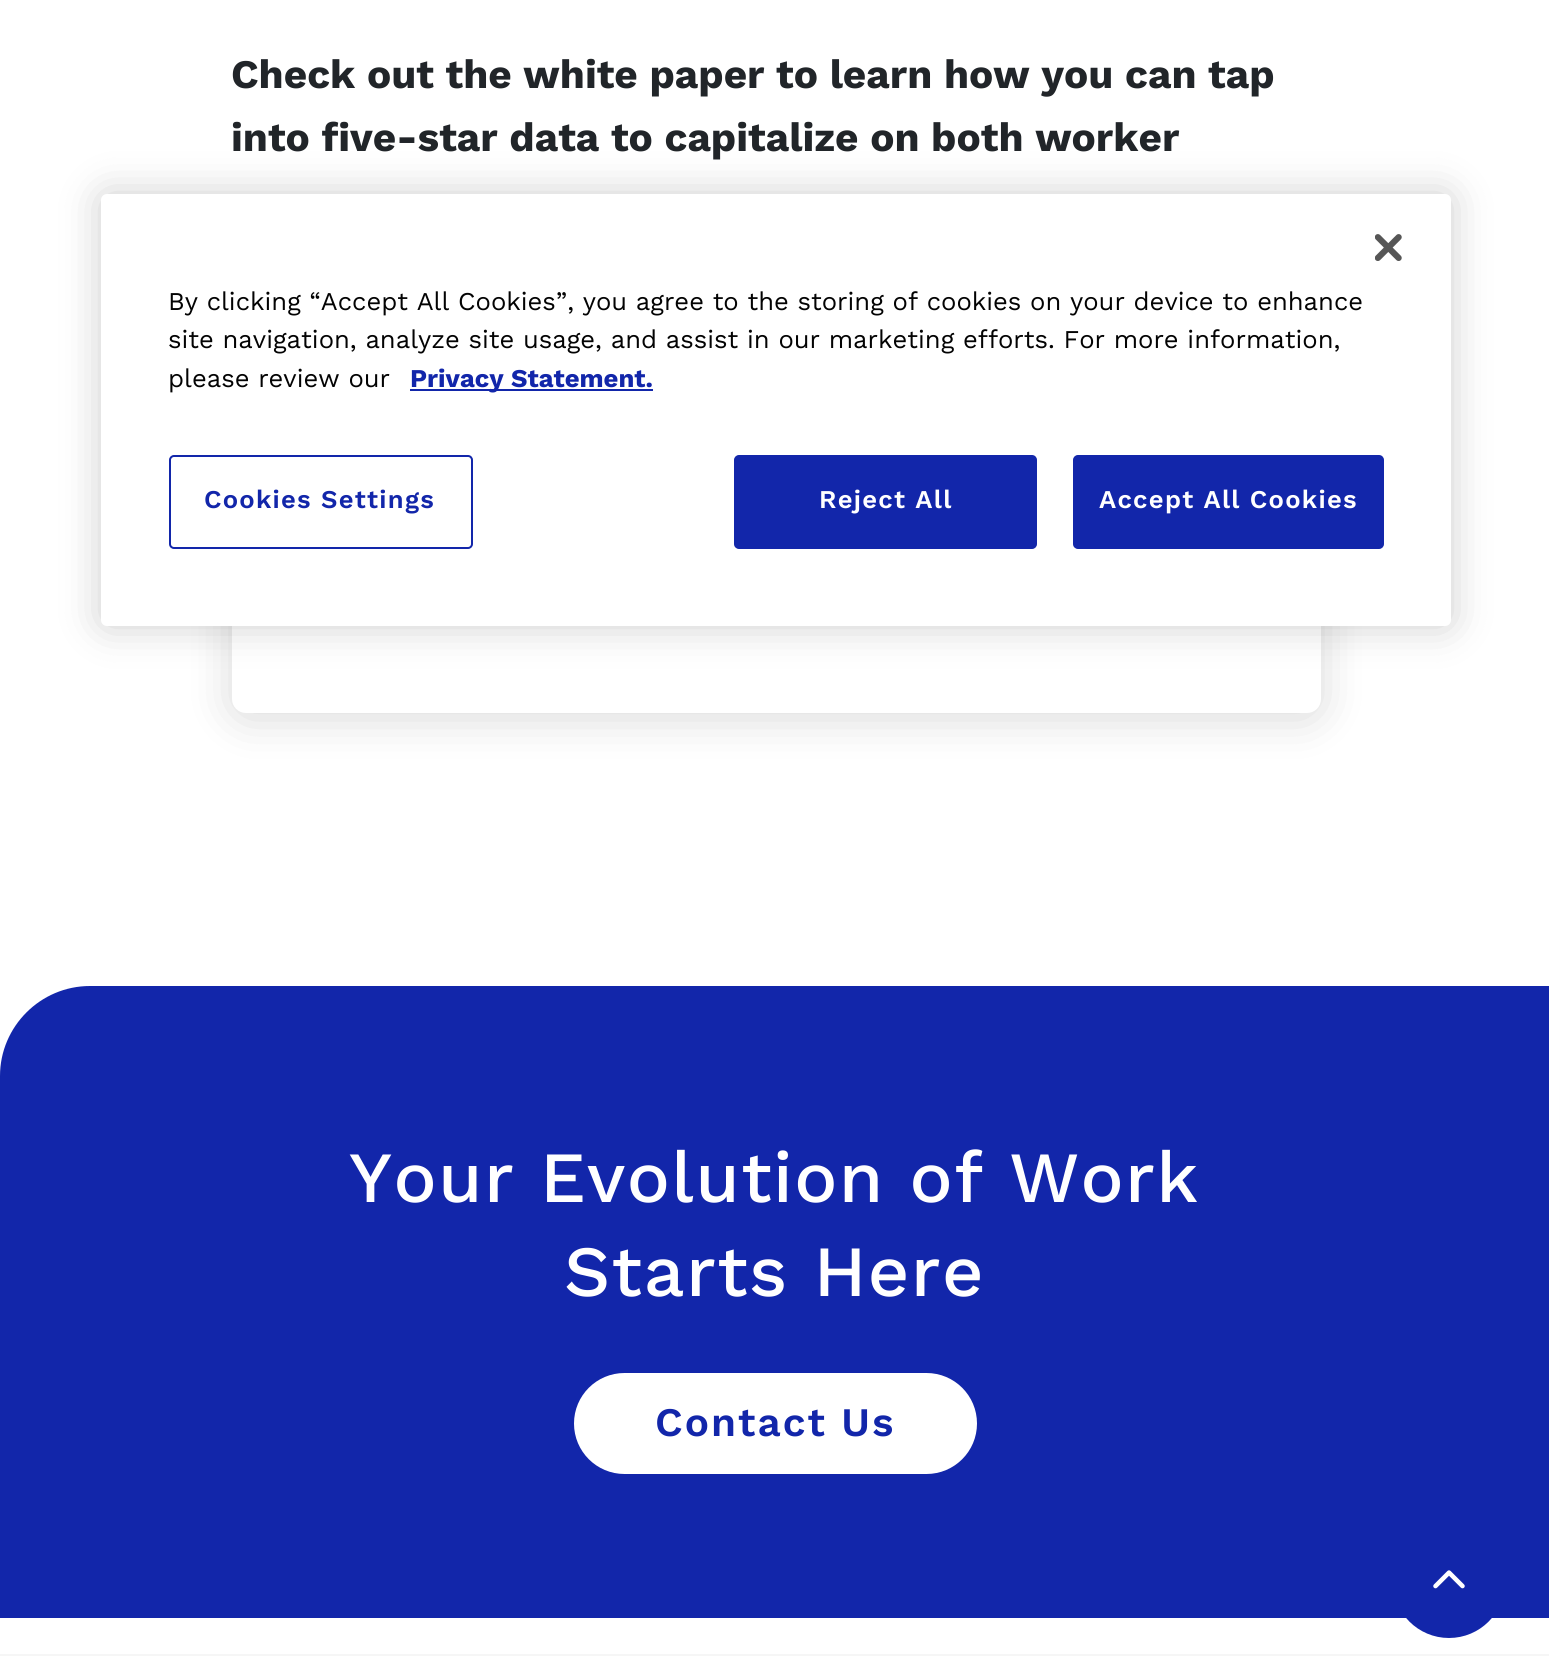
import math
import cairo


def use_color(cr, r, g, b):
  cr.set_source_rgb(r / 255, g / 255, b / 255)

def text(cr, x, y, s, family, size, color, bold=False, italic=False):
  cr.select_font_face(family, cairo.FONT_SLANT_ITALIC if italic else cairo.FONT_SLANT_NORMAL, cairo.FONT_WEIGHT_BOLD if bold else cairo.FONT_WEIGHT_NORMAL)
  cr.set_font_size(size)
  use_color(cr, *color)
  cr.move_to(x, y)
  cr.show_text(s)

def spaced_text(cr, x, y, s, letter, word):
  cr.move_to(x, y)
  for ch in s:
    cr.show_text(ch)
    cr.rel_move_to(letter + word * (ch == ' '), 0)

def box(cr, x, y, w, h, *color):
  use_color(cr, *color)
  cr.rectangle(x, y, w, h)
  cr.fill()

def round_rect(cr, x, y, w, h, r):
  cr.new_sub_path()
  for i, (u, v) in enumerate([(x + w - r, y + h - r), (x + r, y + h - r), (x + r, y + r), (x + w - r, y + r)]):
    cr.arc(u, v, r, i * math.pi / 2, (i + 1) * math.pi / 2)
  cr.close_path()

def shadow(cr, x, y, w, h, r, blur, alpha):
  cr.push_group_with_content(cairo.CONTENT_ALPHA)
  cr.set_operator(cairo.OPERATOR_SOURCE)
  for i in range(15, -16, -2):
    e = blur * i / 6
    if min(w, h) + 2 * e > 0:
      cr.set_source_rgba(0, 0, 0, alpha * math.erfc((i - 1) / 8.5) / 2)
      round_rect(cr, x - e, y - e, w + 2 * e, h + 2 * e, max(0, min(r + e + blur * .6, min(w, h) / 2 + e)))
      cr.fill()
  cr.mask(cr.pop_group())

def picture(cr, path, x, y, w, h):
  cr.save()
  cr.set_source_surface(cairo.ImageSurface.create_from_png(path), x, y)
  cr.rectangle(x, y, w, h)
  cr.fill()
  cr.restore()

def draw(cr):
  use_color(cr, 255, 255, 255)
  cr.paint()
  use_color(cr, 0, 0, 0)
  shadow(cr, 232, 272, 1089, 446, 14, 22.5, 0.15)
  use_color(cr, 255, 255, 255)
  round_rect(cr, 232, 268, 1089, 445, 14)
  cr.fill()
  use_color(cr, 18, 38, 170)
  cr.new_path()
  cr.move_to(90, 986)
  cr.line_to(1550, 986)
  cr.line_to(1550, 1618)
  cr.line_to(0, 1618)
  cr.line_to(0, 1076)
  cr.curve_to(0, 1026.5, 40.5, 986, 90, 986)
  cr.close_path()
  cr.fill()
  use_color(cr, 255, 255, 255)
  round_rect(cr, 574, 1373, 403, 101, 50.5)
  cr.fill()
  use_color(cr, 18, 38, 170)
  cr.arc(1449, 1582, 56, 0, 2 * math.pi)
  cr.fill()
  picture(cr, "img_01.png", 1433, 1570, 32, 19)
  box(cr, 0, 1654, 1549, 2, 246, 246, 246)
  use_color(cr, 0, 0, 0)
  shadow(cr, 101, 194, 1350, 432, 6, 20, 0.2)
  use_color(cr, 255, 255, 255)
  round_rect(cr, 101, 194, 1350, 432, 6)
  cr.fill()
  picture(cr, "img_02.png", 1375, 234, 27, 27)
  box(cr, 410, 389, 243, 2, 18, 38, 170)
  round_rect(cr, 170, 456, 302, 92, 4)
  cr.stroke()
  round_rect(cr, 735, 456, 301, 92, 4)
  cr.fill_preserve()
  cr.stroke()
  round_rect(cr, 1074, 456, 309, 92, 4)
  cr.fill_preserve()
  cr.stroke()
  text(cr, 231, 88, "Check out the white paper to learn how you can tap", "Work Sans", 40.5, (33, 37, 41), bold=True)
  text(cr, 231, 151, "into five-star data to capitalize on both worker", "Work Sans", 40.5, (33, 37, 41), bold=True)
  cr.select_font_face("Work Sans Medium")
  cr.set_font_size(72)
  use_color(cr, 255, 255, 255)
  spaced_text(cr, 349, 1202, "Your Evolution of Work", 1.4, 0)
  spaced_text(cr, 564, 1296, "Starts Here", 1.4, 0)
  cr.select_font_face("Work Sans SemiBold")
  cr.set_font_size(40.5)
  use_color(cr, 18, 38, 170)
  spaced_text(cr, 655, 1436, "Contact Us", 2, 0)
  text(cr, 168, 310, "By clicking “Accept All Cookies”, you agree to the storing of cookies on your device to enhance", "Work Sans", 25.6, (3, 3, 3))
  text(cr, 168, 348, "site navigation, analyze site usage, and assist in our marketing efforts. For more information,", "Work Sans", 25.6, (3, 3, 3))
  text(cr, 168, 387, "please review our", "Work Sans", 25.6, (3, 3, 3))
  text(cr, 410, 387, "Privacy Statement.", "Work Sans", 25.6, (18, 38, 170), bold=True)
  cr.select_font_face("Work Sans SemiBold")
  spaced_text(cr, 204, 508, "Cookies Settings", 1.25, 0)
  use_color(cr, 255, 255, 255)
  spaced_text(cr, 819, 508, "Reject All", 1.25, 0)
  spaced_text(cr, 1099, 508, "Accept All Cookies", 1.25, 0)


surface = cairo.ImageSurface(cairo.FORMAT_RGB24, 1549, 1659)
cr = cairo.Context(surface)
options = cairo.FontOptions()
options.set_hint_metrics(cairo.HINT_METRICS_OFF)
options.set_hint_style(cairo.HINT_STYLE_NONE)
cr.set_font_options(options)
cr.set_miter_limit(4)
draw(cr)
surface.write_to_png("out.png")
